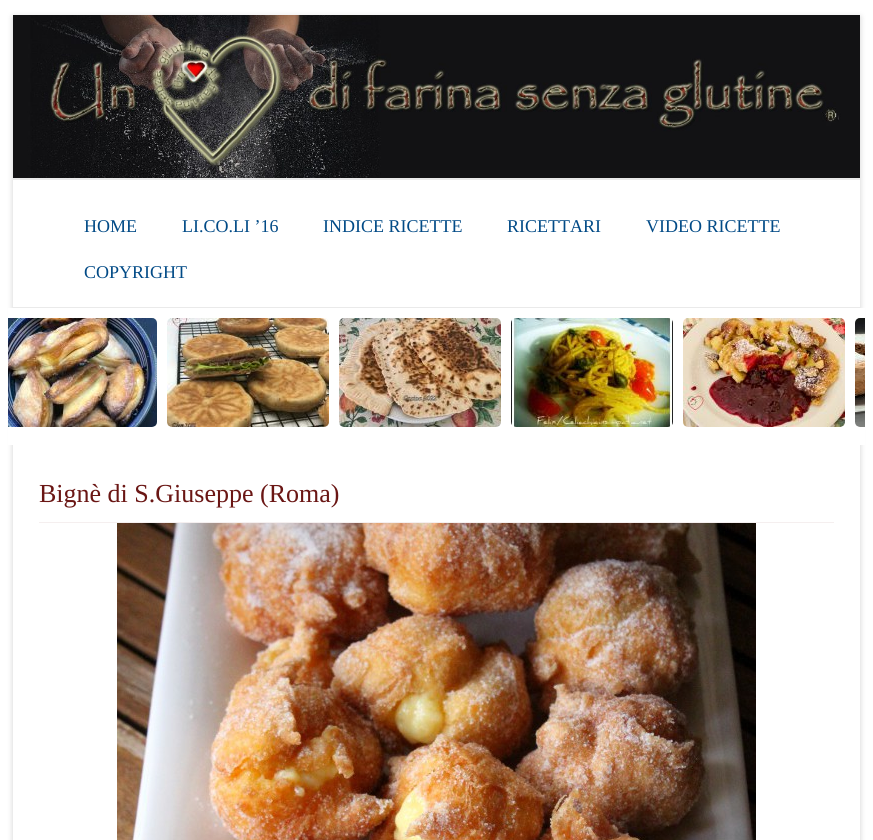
import math
import cairo


def use_color(cr, r, g, b):
  cr.set_source_rgb(r / 255, g / 255, b / 255)

def text(cr, x, y, s, family, size, color, bold=False, italic=False):
  cr.select_font_face(family, cairo.FONT_SLANT_ITALIC if italic else cairo.FONT_SLANT_NORMAL, cairo.FONT_WEIGHT_BOLD if bold else cairo.FONT_WEIGHT_NORMAL)
  cr.set_font_size(size)
  use_color(cr, *color)
  cr.move_to(x, y)
  cr.show_text(s)

def box(cr, x, y, w, h, *color):
  use_color(cr, *color)
  cr.rectangle(x, y, w, h)
  cr.fill()

def round_rect(cr, x, y, w, h, r):
  cr.new_sub_path()
  for i, (u, v) in enumerate([(x + w - r, y + h - r), (x + r, y + h - r), (x + r, y + r), (x + w - r, y + r)]):
    cr.arc(u, v, r, i * math.pi / 2, (i + 1) * math.pi / 2)
  cr.close_path()

def shadow(cr, x, y, w, h, r, blur, alpha):
  cr.push_group_with_content(cairo.CONTENT_ALPHA)
  cr.set_operator(cairo.OPERATOR_SOURCE)
  for i in range(15, -16, -2):
    e = blur * i / 6
    if min(w, h) + 2 * e > 0:
      cr.set_source_rgba(0, 0, 0, alpha * math.erfc((i - 1) / 8.5) / 2)
      round_rect(cr, x - e, y - e, w + 2 * e, h + 2 * e, max(0, min(r + e + blur * .6, min(w, h) / 2 + e)))
      cr.fill()
  cr.mask(cr.pop_group())

def picture(cr, path, x, y, w, h):
  cr.save()
  cr.set_source_surface(cairo.ImageSurface.create_from_png(path), x, y)
  cr.rectangle(x, y, w, h)
  cr.fill()
  cr.restore()

def draw(cr):
  use_color(cr, 255, 255, 255)
  cr.paint()
  cr.save()
  cr.set_fill_rule(cairo.FILL_RULE_EVEN_ODD)
  cr.new_path()
  cr.move_to(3, 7)
  cr.line_to(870, 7)
  cr.line_to(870, 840)
  cr.line_to(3, 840)
  cr.close_path()
  cr.move_to(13, 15)
  cr.line_to(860, 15)
  cr.line_to(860, 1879)
  cr.line_to(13, 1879)
  cr.close_path()
  cr.clip()
  use_color(cr, 100, 100, 100)
  shadow(cr, 13, 17, 847, 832, 0, 3, 0.3)
  cr.restore()
  picture(cr, "img_01.png", 13, 15, 847, 163)
  box(cr, 13, 178, 847, 2, 234, 234, 234)
  box(cr, 13, 307, 847, 1, 234, 234, 234)
  box(cr, 8, 308, 857, 137, 255, 255, 255)
  picture(cr, "img_02.png", 8, 318, 149, 109)
  picture(cr, "img_03.png", 167, 318, 162, 109)
  picture(cr, "img_04.png", 339, 318, 162, 109)
  picture(cr, "img_05.png", 511, 318, 162, 109)
  picture(cr, "img_06.png", 683, 318, 162, 109)
  picture(cr, "img_07.png", 855, 318, 10, 109)
  box(cr, 39, 522, 795, 1, 245, 239, 239)
  picture(cr, "img_08.png", 117, 523, 639, 317)
  text(cr, 84, 232, "HOME", "Liberation Serif", 18, (1, 74, 134))
  text(cr, 182, 232, "LI.CO.LI ’16", "Liberation Serif", 18, (1, 74, 134))
  text(cr, 323, 232, "INDICE RICETTE", "Liberation Serif", 18, (1, 74, 134))
  text(cr, 507, 232, "RICETTARI", "Liberation Serif", 18, (1, 74, 134))
  text(cr, 646, 232, "VIDEO RICETTE", "Liberation Serif", 18, (1, 74, 134))
  text(cr, 84, 278, "COPYRIGHT", "Liberation Serif", 18, (1, 74, 134))
  text(cr, 39, 502, "Bignè di S.Giuseppe (Roma)", "Liberation Serif", 26, (106, 22, 20))


surface = cairo.ImageSurface(cairo.FORMAT_RGB24, 873, 840)
cr = cairo.Context(surface)
options = cairo.FontOptions()
options.set_hint_metrics(cairo.HINT_METRICS_OFF)
options.set_hint_style(cairo.HINT_STYLE_NONE)
cr.set_font_options(options)
cr.set_miter_limit(4)
draw(cr)
surface.write_to_png("out.png")
